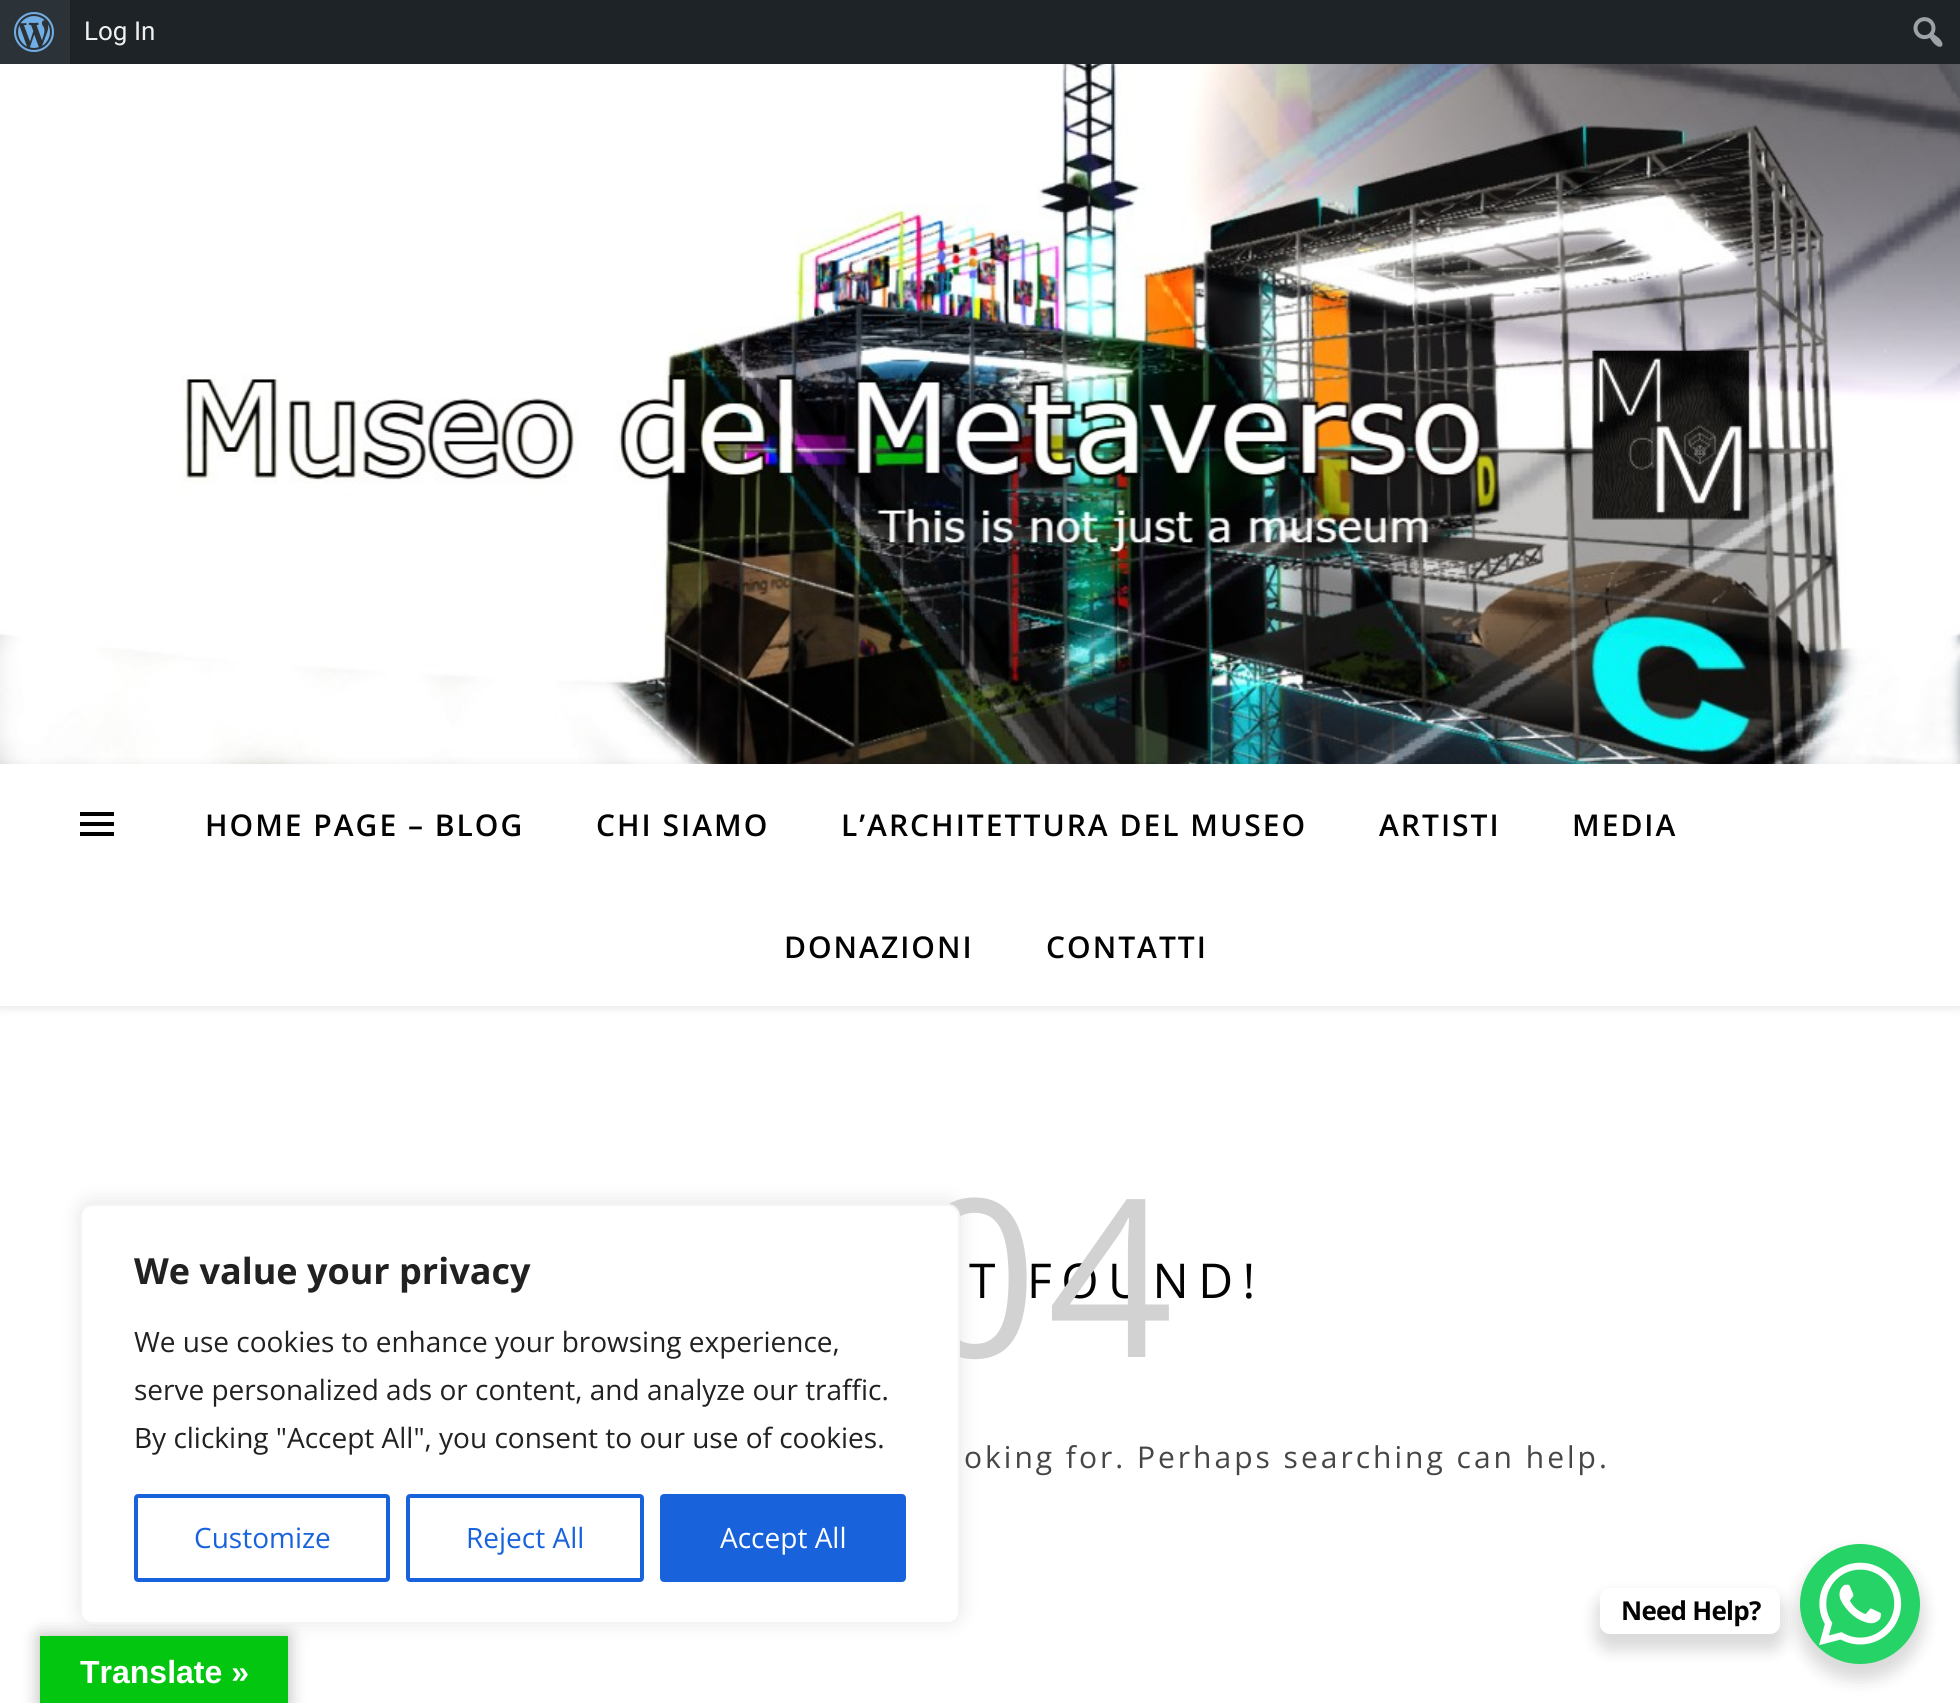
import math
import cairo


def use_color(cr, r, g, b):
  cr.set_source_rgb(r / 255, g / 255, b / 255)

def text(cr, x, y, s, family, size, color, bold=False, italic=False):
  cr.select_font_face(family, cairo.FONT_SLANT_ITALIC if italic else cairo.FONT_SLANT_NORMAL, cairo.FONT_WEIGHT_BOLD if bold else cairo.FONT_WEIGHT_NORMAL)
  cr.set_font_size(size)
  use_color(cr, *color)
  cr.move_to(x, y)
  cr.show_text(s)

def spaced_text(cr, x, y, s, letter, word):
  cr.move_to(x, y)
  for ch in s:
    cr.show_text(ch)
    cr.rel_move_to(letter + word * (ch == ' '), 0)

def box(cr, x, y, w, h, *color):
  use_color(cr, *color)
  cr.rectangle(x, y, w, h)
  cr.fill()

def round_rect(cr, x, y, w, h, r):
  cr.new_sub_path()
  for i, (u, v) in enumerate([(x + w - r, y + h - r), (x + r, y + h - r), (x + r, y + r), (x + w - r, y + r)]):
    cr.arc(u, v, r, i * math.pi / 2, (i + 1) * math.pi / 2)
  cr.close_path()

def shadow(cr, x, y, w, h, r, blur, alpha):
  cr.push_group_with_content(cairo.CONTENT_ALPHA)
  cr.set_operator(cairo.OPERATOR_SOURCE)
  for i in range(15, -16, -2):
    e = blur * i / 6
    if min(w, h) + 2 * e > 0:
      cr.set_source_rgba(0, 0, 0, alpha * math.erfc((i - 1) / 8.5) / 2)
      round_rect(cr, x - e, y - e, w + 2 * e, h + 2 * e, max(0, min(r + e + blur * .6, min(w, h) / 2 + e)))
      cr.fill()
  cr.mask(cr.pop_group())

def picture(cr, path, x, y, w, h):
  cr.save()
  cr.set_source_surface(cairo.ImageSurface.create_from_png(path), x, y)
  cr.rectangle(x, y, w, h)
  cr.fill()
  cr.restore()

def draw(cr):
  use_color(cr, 255, 255, 255)
  cr.paint()
  box(cr, 70, 0, 1890, 64, 29, 35, 39)
  box(cr, 0, 0, 70, 64, 44, 51, 56)
  picture(cr, "img_01.png", 14, 12, 40, 40)
  picture(cr, "img_02.png", 1913, 17, 30, 30)
  picture(cr, "img_03.png", 0, 64, 1960, 700)
  cr.save()
  cr.set_fill_rule(cairo.FILL_RULE_EVEN_ODD)
  cr.new_path()
  cr.move_to(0, 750)
  cr.line_to(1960, 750)
  cr.line_to(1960, 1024)
  cr.line_to(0, 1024)
  cr.close_path()
  cr.move_to(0, 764)
  cr.line_to(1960, 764)
  cr.line_to(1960, 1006)
  cr.line_to(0, 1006)
  cr.close_path()
  cr.clip()
  use_color(cr, 0, 0, 0)
  shadow(cr, 0, 766, 1960, 242, 0, 5, 0.1)
  cr.restore()
  box(cr, 80, 812, 34, 4, 0, 0, 0)
  box(cr, 80, 822, 34, 4, 0, 0, 0)
  box(cr, 80, 832, 34, 4, 0, 0, 0)
  use_color(cr, 0, 0, 0)
  shadow(cr, 40, 1636, 248, 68, 0, 9, 0.3)
  box(cr, 40, 1636, 248, 67, 3, 198, 16)
  use_color(cr, 172, 171, 171)
  shadow(cr, 80, 1202, 880, 420, 12, 10, 0.3)
  use_color(cr, 0, 0, 0)
  shadow(cr, 1796, 1552, 128, 128, 64, 8, 0.15)
  use_color(cr, 37, 211, 102)
  cr.arc(1860, 1604, 60, 0, 2 * math.pi)
  cr.fill()
  use_color(cr, 0, 0, 0)
  shadow(cr, 1596, 1596, 188, 54, 14, 8, 0.15)
  use_color(cr, 255, 255, 255)
  round_rect(cr, 1600, 1588, 180, 46, 10)
  cr.fill()
  picture(cr, "img_04.png", 1819, 1562, 83, 84)
  text(cr, 84, 40, "Log In", "Roboto", 26, (240, 240, 241))
  cr.select_font_face("Open Sans SemiBold")
  cr.set_font_size(30)
  use_color(cr, 3, 3, 3)
  spaced_text(cr, 205, 836, "HOME PAGE – BLOG", 2, 0)
  spaced_text(cr, 596, 836, "CHI SIAMO", 2, 0)
  spaced_text(cr, 841, 836, "L’ARCHITETTURA DEL MUSEO", 2, 0)
  spaced_text(cr, 1379, 836, "ARTISTI", 2, 0)
  spaced_text(cr, 1572, 836, "MEDIA", 2, 0)
  spaced_text(cr, 784, 958, "DONAZIONI", 2, 0)
  spaced_text(cr, 1046, 958, "CONTATTI", 2, 0)
  cr.select_font_face("Open Sans")
  cr.set_font_size(48)
  spaced_text(cr, 969, 1298, "T FOUND!", 9.5, 0)
  cr.set_font_size(220)
  use_color(cr, 210, 210, 210)
  spaced_text(cr, 912, 1357, "04", 9.5, 0)
  cr.set_font_size(30)
  use_color(cr, 70, 70, 70)
  spaced_text(cr, 964, 1468, "oking for. Perhaps searching can help.", 3, 0)
  use_color(cr, 255, 255, 255)
  round_rect(cr, 81, 1205, 878, 418, 11)
  cr.fill_preserve()
  use_color(cr, 244, 244, 244)
  cr.stroke()
  text(cr, 134, 1284, "We value your privacy", "Open Sans", 36, (33, 33, 33), bold=True)
  text(cr, 134, 1352, "We use cookies to enhance your browsing experience,", "Open Sans", 28, (33, 33, 33))
  text(cr, 134, 1400, "serve personalized ads or content, and analyze our traffic.", "Open Sans", 28, (33, 33, 33))
  text(cr, 134, 1448, "By clicking \"Accept All\", you consent to our use of cookies.", "Open Sans", 28, (33, 33, 33))
  round_rect(cr, 136, 1496, 252, 84, 2)
  use_color(cr, 24, 99, 220)
  cr.set_line_width(4)
  cr.stroke()
  text(cr, 194, 1548, "Customize", "Open Sans", 28, (24, 99, 220))
  round_rect(cr, 408, 1496, 234, 84, 2)
  cr.stroke()
  text(cr, 466, 1548, "Reject All", "Open Sans", 28, (24, 99, 220))
  round_rect(cr, 662, 1496, 242, 84, 2)
  cr.fill_preserve()
  cr.stroke()
  text(cr, 720, 1548, "Accept All", "Open Sans", 28, (255, 255, 255))
  cr.select_font_face("Open Sans", cairo.FONT_SLANT_NORMAL, cairo.FONT_WEIGHT_BOLD)
  cr.set_font_size(26)
  use_color(cr, 3, 3, 3)
  spaced_text(cr, 1621, 1620, "Need Help?", -0.75, 0)
  text(cr, 80, 1683, "Translate »", "Liberation Sans", 32, (255, 255, 255), bold=True)


surface = cairo.ImageSurface(cairo.FORMAT_RGB24, 1960, 1703)
cr = cairo.Context(surface)
options = cairo.FontOptions()
options.set_hint_metrics(cairo.HINT_METRICS_OFF)
options.set_hint_style(cairo.HINT_STYLE_NONE)
cr.set_font_options(options)
cr.set_miter_limit(4)
draw(cr)
surface.write_to_png("out.png")
